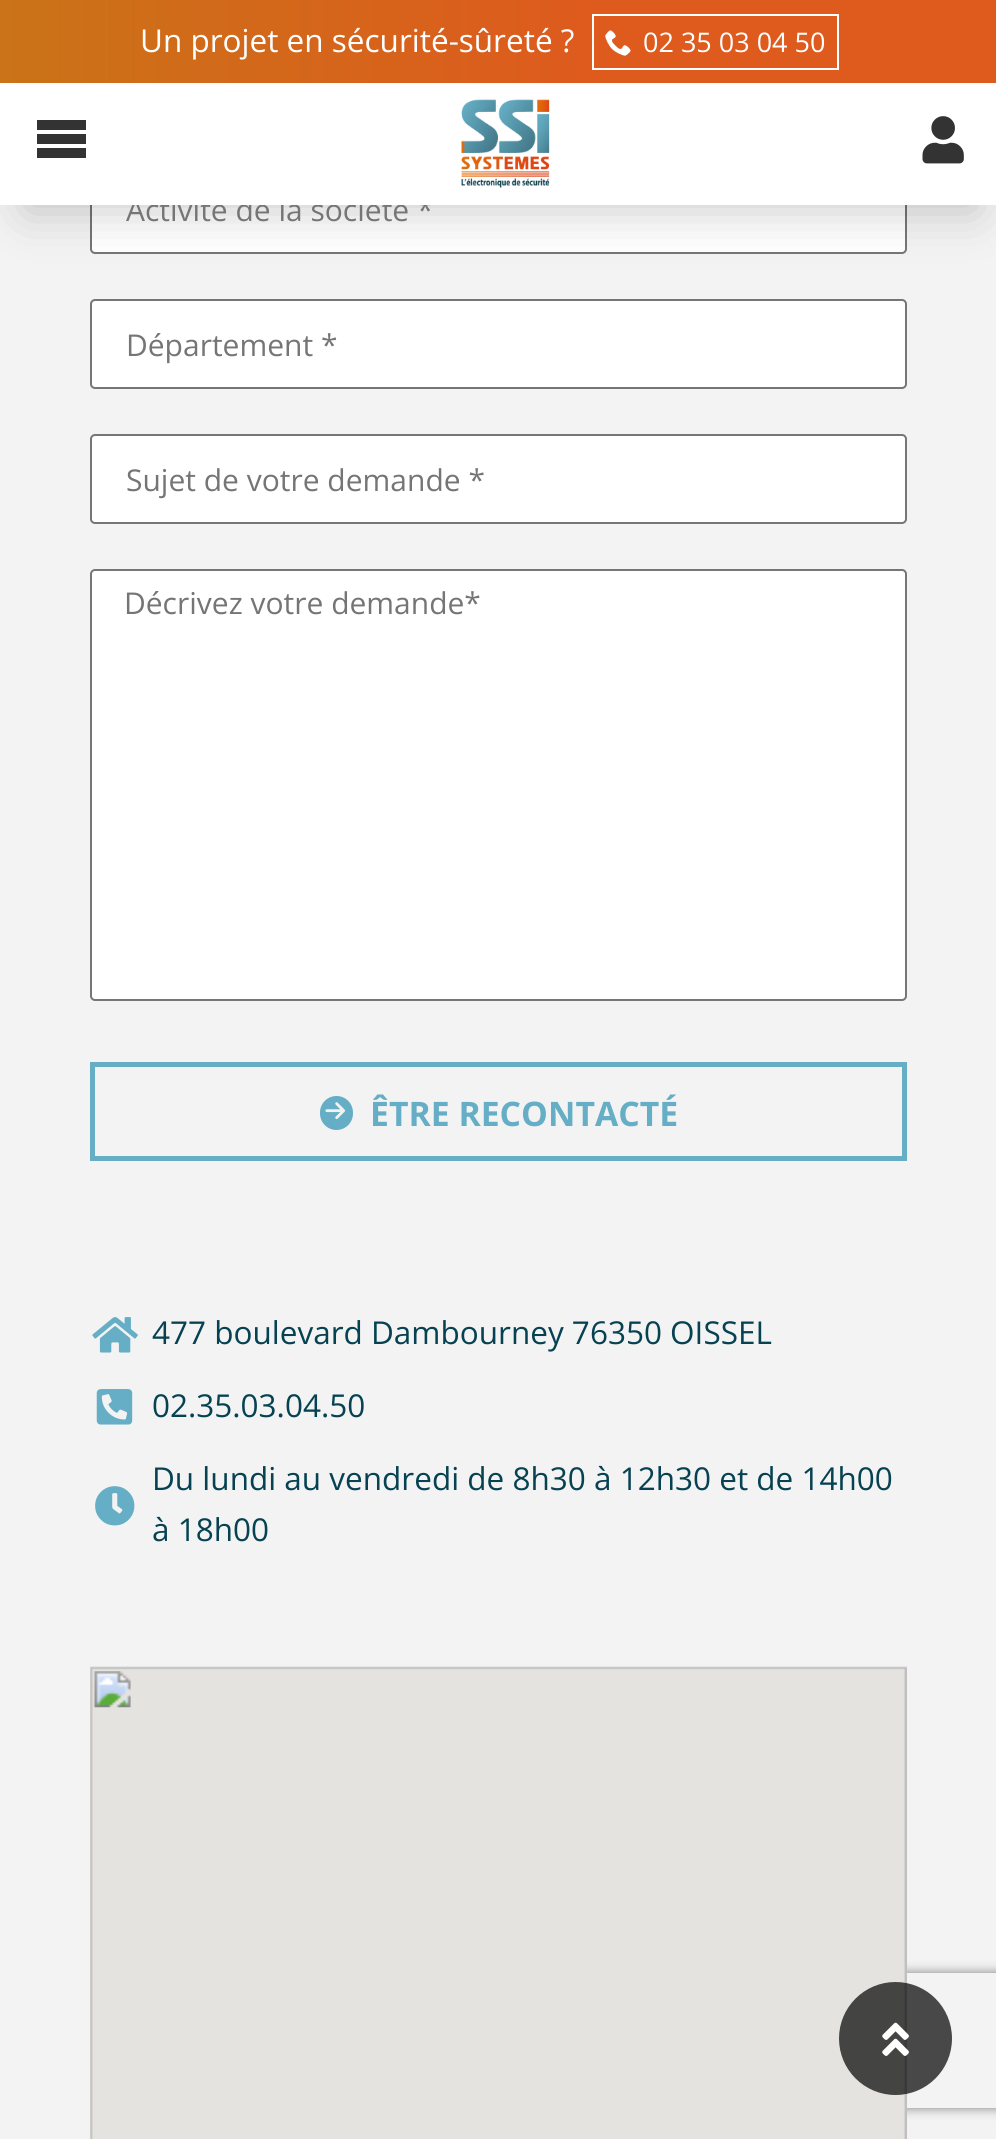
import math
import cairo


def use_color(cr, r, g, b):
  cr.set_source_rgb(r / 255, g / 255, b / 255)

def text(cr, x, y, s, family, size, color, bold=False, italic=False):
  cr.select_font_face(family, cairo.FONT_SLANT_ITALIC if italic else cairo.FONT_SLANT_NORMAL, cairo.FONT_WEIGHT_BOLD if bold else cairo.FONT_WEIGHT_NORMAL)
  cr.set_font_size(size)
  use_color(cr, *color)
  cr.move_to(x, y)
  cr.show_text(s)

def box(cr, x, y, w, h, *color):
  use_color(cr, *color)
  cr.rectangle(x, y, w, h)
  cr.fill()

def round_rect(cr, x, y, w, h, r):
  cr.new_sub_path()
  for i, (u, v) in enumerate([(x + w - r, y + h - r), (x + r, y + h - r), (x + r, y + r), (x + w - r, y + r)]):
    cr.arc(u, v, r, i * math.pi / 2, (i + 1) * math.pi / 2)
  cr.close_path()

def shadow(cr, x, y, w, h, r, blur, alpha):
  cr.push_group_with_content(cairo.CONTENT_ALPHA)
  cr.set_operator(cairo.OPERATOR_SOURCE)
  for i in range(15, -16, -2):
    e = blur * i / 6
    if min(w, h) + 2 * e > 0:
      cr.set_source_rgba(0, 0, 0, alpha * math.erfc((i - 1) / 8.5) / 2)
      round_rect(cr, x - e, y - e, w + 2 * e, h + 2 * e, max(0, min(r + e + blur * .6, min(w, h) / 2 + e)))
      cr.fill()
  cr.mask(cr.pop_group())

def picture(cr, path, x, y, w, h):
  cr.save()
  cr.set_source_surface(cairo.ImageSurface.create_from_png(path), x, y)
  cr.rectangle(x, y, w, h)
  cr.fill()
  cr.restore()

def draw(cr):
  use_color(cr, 243, 243, 243)
  cr.paint()
  gradient = cairo.LinearGradient(0, 42, 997, 42)
  gradient.add_color_stop_rgba(0, 0.792, 0.451, 0.094, 1)
  gradient.add_color_stop_rgba(0.6, 0.871, 0.353, 0.114, 1)
  cr.set_source(gradient)
  cr.rectangle(0, 0, 996, 83)
  cr.fill()
  cr.rectangle(593, 15, 245, 54)
  use_color(cr, 255, 255, 255)
  cr.stroke()
  picture(cr, "img_01.png", 605, 30, 26, 26)
  round_rect(cr, 91, 165, 815, 88, 4)
  cr.fill_preserve()
  use_color(cr, 118, 118, 118)
  cr.stroke()
  use_color(cr, 0, 0, 0)
  shadow(cr, 25, 135, 952, 77, 0, 23.5, 0.2)
  use_color(cr, 255, 255, 255)
  round_rect(cr, 91, 300, 815, 88, 4)
  cr.fill_preserve()
  use_color(cr, 118, 118, 118)
  cr.stroke()
  use_color(cr, 255, 255, 255)
  round_rect(cr, 91, 435, 815, 88, 4)
  cr.fill_preserve()
  use_color(cr, 118, 118, 118)
  cr.stroke()
  use_color(cr, 255, 255, 255)
  round_rect(cr, 91, 570, 815, 430, 4)
  cr.fill_preserve()
  use_color(cr, 118, 118, 118)
  cr.stroke()
  cr.rectangle(92.5, 1064.5, 812, 94)
  use_color(cr, 101, 174, 197)
  cr.set_line_width(5)
  cr.stroke()
  round_rect(cr, 320, 1096, 33, 34, 16.5)
  cr.fill()
  picture(cr, "img_04.png", 325, 1102, 21, 18)
  cr.save()
  cr.set_fill_rule(cairo.FILL_RULE_EVEN_ODD)
  cr.new_path()
  cr.move_to(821, 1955)
  cr.line_to(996, 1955)
  cr.line_to(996, 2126)
  cr.line_to(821, 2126)
  cr.close_path()
  cr.move_to(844, 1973)
  cr.line_to(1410, 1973)
  cr.curve_to(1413, 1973, 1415, 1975, 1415, 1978)
  cr.line_to(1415, 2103)
  cr.curve_to(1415, 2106, 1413, 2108, 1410, 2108)
  cr.line_to(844, 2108)
  cr.curve_to(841, 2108, 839, 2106, 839, 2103)
  cr.line_to(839, 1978)
  cr.curve_to(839, 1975, 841, 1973, 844, 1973)
  cr.close_path()
  cr.clip()
  use_color(cr, 128, 128, 128)
  shadow(cr, 839, 1973, 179, 135, 5, 5.5, 1)
  cr.restore()
  picture(cr, "img_05.png", 92, 1317, 46, 36)
  picture(cr, "img_06.png", 96, 1389, 37, 36)
  picture(cr, "img_07.png", 95, 1486, 40, 40)
  picture(cr, "img_08.png", 90, 1666, 817, 473)
  cr.set_source_rgba(0, 0, 0, 0.7)
  cr.arc(895.5, 2038.5, 56.5, 0, 2 * math.pi)
  cr.fill()
  picture(cr, "img_09.png", 882, 2022, 27, 34)
  text(cr, 140, 52, "Un projet en sécurité-sûreté ?", "Open Sans", 31.5, (255, 255, 255))
  text(cr, 643, 52, "02 35 03 04 50", "Open Sans", 27, (255, 255, 255))
  text(cr, 126, 221, "Activité de la société *", "Open Sans", 30, (117, 117, 117))
  box(cr, 0, 83, 996, 122, 255, 255, 255)
  picture(cr, "img_03.png", 922, 116, 42, 48)
  picture(cr, "img_02.png", 461, 99, 89, 89)
  use_color(cr, 51, 51, 51)
  cr.new_path()
  cr.move_to(37, 120)
  cr.line_to(86, 120)
  cr.line_to(86, 130)
  cr.line_to(37, 130)
  cr.close_path()
  cr.move_to(37, 134)
  cr.line_to(86, 134)
  cr.line_to(86, 144)
  cr.line_to(37, 144)
  cr.close_path()
  cr.move_to(37, 148)
  cr.line_to(86, 148)
  cr.line_to(86, 158)
  cr.line_to(37, 158)
  cr.close_path()
  cr.fill()
  text(cr, 126, 356, "Département *", "Open Sans", 30, (117, 117, 117))
  text(cr, 126, 491, "Sujet de votre demande *", "Open Sans", 30, (117, 117, 117))
  text(cr, 124, 614, "Décrivez votre demande*", "Open Sans", 30, (117, 117, 117))
  text(cr, 370, 1126, "ÊTRE RECONTACTÉ", "Open Sans", 33.75, (101, 174, 197), bold=True)
  text(cr, 152, 1344, "477 boulevard Dambourney 76350 OISSEL", "Open Sans", 31.5, (6, 66, 81))
  text(cr, 152, 1417, "02.35.03.04.50", "Open Sans", 31.5, (6, 66, 81))
  text(cr, 152, 1490, "Du lundi au vendredi de 8h30 à 12h30 et de 14h00", "Open Sans", 31.5, (6, 66, 81))
  text(cr, 152, 1541, "à 18h00", "Open Sans", 31.5, (6, 66, 81))


surface = cairo.ImageSurface(cairo.FORMAT_RGB24, 996, 2139)
cr = cairo.Context(surface)
options = cairo.FontOptions()
options.set_hint_metrics(cairo.HINT_METRICS_OFF)
options.set_hint_style(cairo.HINT_STYLE_NONE)
cr.set_font_options(options)
cr.set_miter_limit(4)
draw(cr)
surface.write_to_png("out.png")
